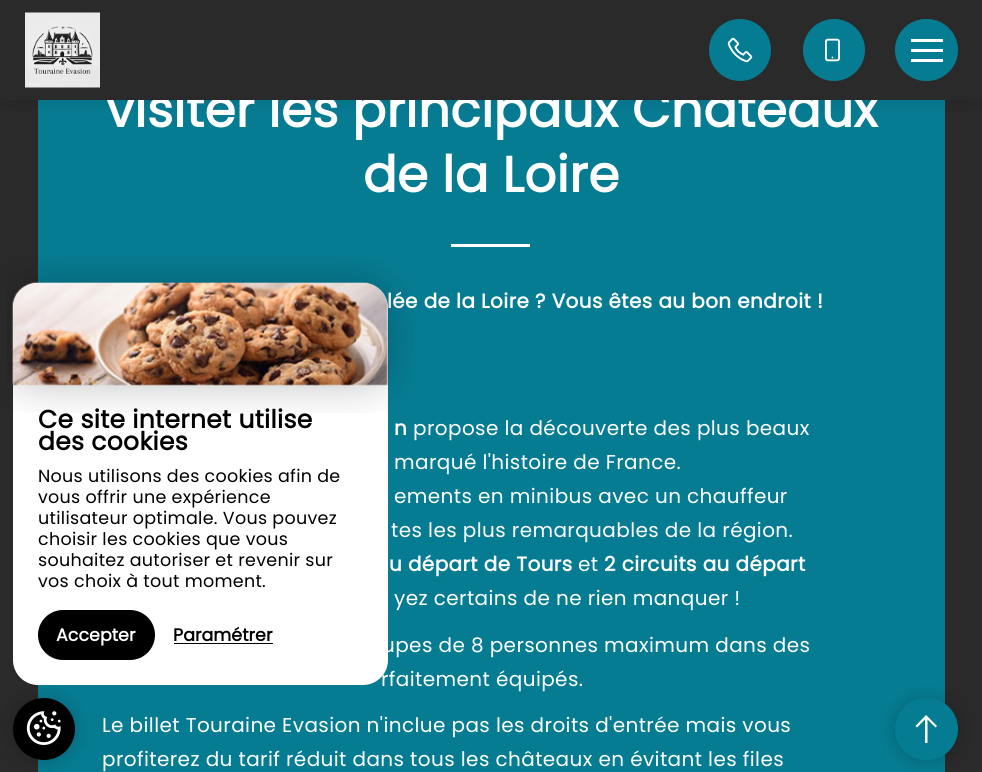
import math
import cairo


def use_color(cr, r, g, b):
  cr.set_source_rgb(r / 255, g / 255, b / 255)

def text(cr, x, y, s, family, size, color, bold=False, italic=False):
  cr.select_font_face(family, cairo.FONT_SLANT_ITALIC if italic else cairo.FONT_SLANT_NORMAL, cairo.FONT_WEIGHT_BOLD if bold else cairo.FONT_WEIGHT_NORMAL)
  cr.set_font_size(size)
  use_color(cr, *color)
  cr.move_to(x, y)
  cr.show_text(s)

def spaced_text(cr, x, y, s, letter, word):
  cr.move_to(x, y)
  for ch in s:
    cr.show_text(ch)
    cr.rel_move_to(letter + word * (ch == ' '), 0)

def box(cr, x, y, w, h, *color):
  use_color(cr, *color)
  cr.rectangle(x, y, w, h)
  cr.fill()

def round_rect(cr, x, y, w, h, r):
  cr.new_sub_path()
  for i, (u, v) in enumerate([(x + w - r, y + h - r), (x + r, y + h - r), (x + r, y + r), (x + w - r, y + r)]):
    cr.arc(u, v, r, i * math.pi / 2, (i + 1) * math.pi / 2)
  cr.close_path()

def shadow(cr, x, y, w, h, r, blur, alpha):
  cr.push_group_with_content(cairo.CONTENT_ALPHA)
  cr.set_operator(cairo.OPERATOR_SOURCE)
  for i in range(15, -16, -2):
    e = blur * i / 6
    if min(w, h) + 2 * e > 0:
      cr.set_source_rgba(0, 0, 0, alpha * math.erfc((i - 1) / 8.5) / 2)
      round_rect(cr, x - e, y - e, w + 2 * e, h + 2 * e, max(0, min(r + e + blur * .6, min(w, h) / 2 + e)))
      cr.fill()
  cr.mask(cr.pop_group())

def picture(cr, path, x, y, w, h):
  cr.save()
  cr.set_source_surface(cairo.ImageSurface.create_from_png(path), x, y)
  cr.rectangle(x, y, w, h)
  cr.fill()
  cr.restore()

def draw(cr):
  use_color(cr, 42, 42, 42)
  cr.paint()
  box(cr, 38, 100, 907, 672, 6, 124, 147)
  use_color(cr, 0, 0, 0)
  shadow(cr, 5, 5, 973, 90, 0, 14, 0.17)
  box(cr, 451, 244, 79, 3, 255, 255, 255)
  use_color(cr, 0, 0, 0)
  shadow(cr, 895, 699, 63, 62, 31, 9.5, 0.2)
  use_color(cr, 6, 124, 147)
  round_rect(cr, 895, 698, 63, 62, 31)
  cr.fill()
  use_color(cr, 255, 255, 255)
  cr.new_path()
  cr.move_to(927.5, 743)
  cr.line_to(927.5, 719.5)
  cr.line_to(935.5, 727.5)
  cr.line_to(937, 726)
  cr.line_to(926, 715)
  cr.line_to(915.5, 726)
  cr.line_to(917, 727.5)
  cr.line_to(925, 719.5)
  cr.line_to(925, 743)
  cr.close_path()
  cr.fill()
  round_rect(cr, 13, 283, 375, 402, 25)
  cr.fill()
  use_color(cr, 0, 0, 0)
  round_rect(cr, 38, 610, 117, 50, 25)
  cr.fill()
  box(cr, 174, 643, 99, 1, 0, 0, 0)
  use_color(cr, 0, 0, 0)
  shadow(cr, 13, 699, 62, 62, 31, 9.5, 0.2)
  use_color(cr, 0, 0, 0)
  cr.arc(44, 729, 31, 0, 2 * math.pi)
  cr.fill()
  picture(cr, "img_05.png", 26, 711, 35, 34)
  cr.select_font_face("Poppins", cairo.FONT_SLANT_NORMAL, cairo.FONT_WEIGHT_BOLD)
  cr.set_font_size(50)
  use_color(cr, 255, 255, 255)
  spaced_text(cr, 106, 127, "visiter les principaux Châteaux", 0.3, 0)
  box(cr, 0, 0, 982, 100, 42, 42, 42)
  use_color(cr, 6, 124, 147)
  round_rect(cr, 895, 19, 63, 62, 31)
  cr.fill()
  box(cr, 911, 39, 32, 3, 255, 255, 255)
  box(cr, 911, 59, 32, 3, 255, 255, 255)
  box(cr, 911, 49, 32, 3, 255, 255, 255)
  use_color(cr, 6, 124, 147)
  cr.arc(834, 50, 31, 0, 2 * math.pi)
  cr.fill()
  picture(cr, "img_03.png", 825, 38, 15, 24)
  cr.arc(740, 50, 31, 0, 2 * math.pi)
  cr.fill()
  picture(cr, "img_02.png", 727, 37, 26, 26)
  picture(cr, "img_01.png", 25, 12, 75, 76)
  use_color(cr, 255, 255, 255)
  spaced_text(cr, 363, 192, "de la Loire", 0.3, 0)
  cr.set_font_size(20)
  spaced_text(cr, 387, 308, "lée de la Loire ? Vous êtes au bon endroit !", 0.4, 0)
  spaced_text(cr, 394, 435, "n", 0.4, 0)
  cr.select_font_face("Poppins")
  spaced_text(cr, 413, 435, "propose la découverte des plus beaux", 0.4, 0)
  spaced_text(cr, 394, 469, "marqué l'histoire de France.", 0.4, 0)
  spaced_text(cr, 394, 503, "ements en minibus avec un chauffeur", 0.4, 0)
  spaced_text(cr, 391, 537, "tes les plus remarquables de la région.", 0.4, 0)
  cr.select_font_face("Poppins", cairo.FONT_SLANT_NORMAL, cairo.FONT_WEIGHT_BOLD)
  spaced_text(cr, 389, 571, "u départ de Tours", 0.4, 0)
  cr.select_font_face("Poppins")
  spaced_text(cr, 578, 571, "et", 0.4, 0)
  cr.select_font_face("Poppins", cairo.FONT_SLANT_NORMAL, cairo.FONT_WEIGHT_BOLD)
  spaced_text(cr, 604, 571, "2 circuits au départ", 0.4, 0)
  cr.select_font_face("Poppins")
  spaced_text(cr, 394, 605, "yez certains de ne rien manquer !", 0.4, 0)
  spaced_text(cr, 382, 652, "upes de 8 personnes maximum dans des", 0.4, 0)
  spaced_text(cr, 381, 686, "rfaitement équipés.", 0.4, 0)
  spaced_text(cr, 102, 732, "Le billet Touraine Evasion n'inclue pas les droits d'entrée mais vous", 0.4, 0)
  spaced_text(cr, 102, 766, "profiterez du tarif réduit dans tous les châteaux en évitant les files", 0.4, 0)
  picture(cr, "img_04.png", 7, 256, 407, 157)
  cr.select_font_face("Poppins", cairo.FONT_SLANT_NORMAL, cairo.FONT_WEIGHT_BOLD)
  cr.set_font_size(25)
  use_color(cr, 0, 0, 0)
  spaced_text(cr, 38, 428, "Ce site internet utilise", 0.3, 0)
  spaced_text(cr, 38, 450, "des cookies", 0.3, 0)
  cr.select_font_face("Poppins")
  cr.set_font_size(17.5)
  spaced_text(cr, 38, 482, "Nous utilisons des cookies afin de", 0.3, 0)
  spaced_text(cr, 38, 503, "vous offrir une expérience", 0.3, 0)
  spaced_text(cr, 38, 524, "utilisateur optimale. Vous pouvez", 0.3, 0)
  spaced_text(cr, 38, 545, "choisir les cookies que vous", 0.3, 0)
  spaced_text(cr, 38, 566, "souhaitez autoriser et revenir sur", 0.3, 0)
  spaced_text(cr, 38, 587, "vos choix à tout moment.", 0.3, 0)
  text(cr, 56, 641, "Accepter", "Poppins", 17.5, (255, 255, 255), bold=True)
  text(cr, 173, 641, "Paramétrer", "Poppins", 17.5, (0, 0, 0), bold=True)


surface = cairo.ImageSurface(cairo.FORMAT_RGB24, 982, 772)
cr = cairo.Context(surface)
options = cairo.FontOptions()
options.set_hint_metrics(cairo.HINT_METRICS_OFF)
options.set_hint_style(cairo.HINT_STYLE_NONE)
cr.set_font_options(options)
cr.set_miter_limit(4)
draw(cr)
surface.write_to_png("out.png")
